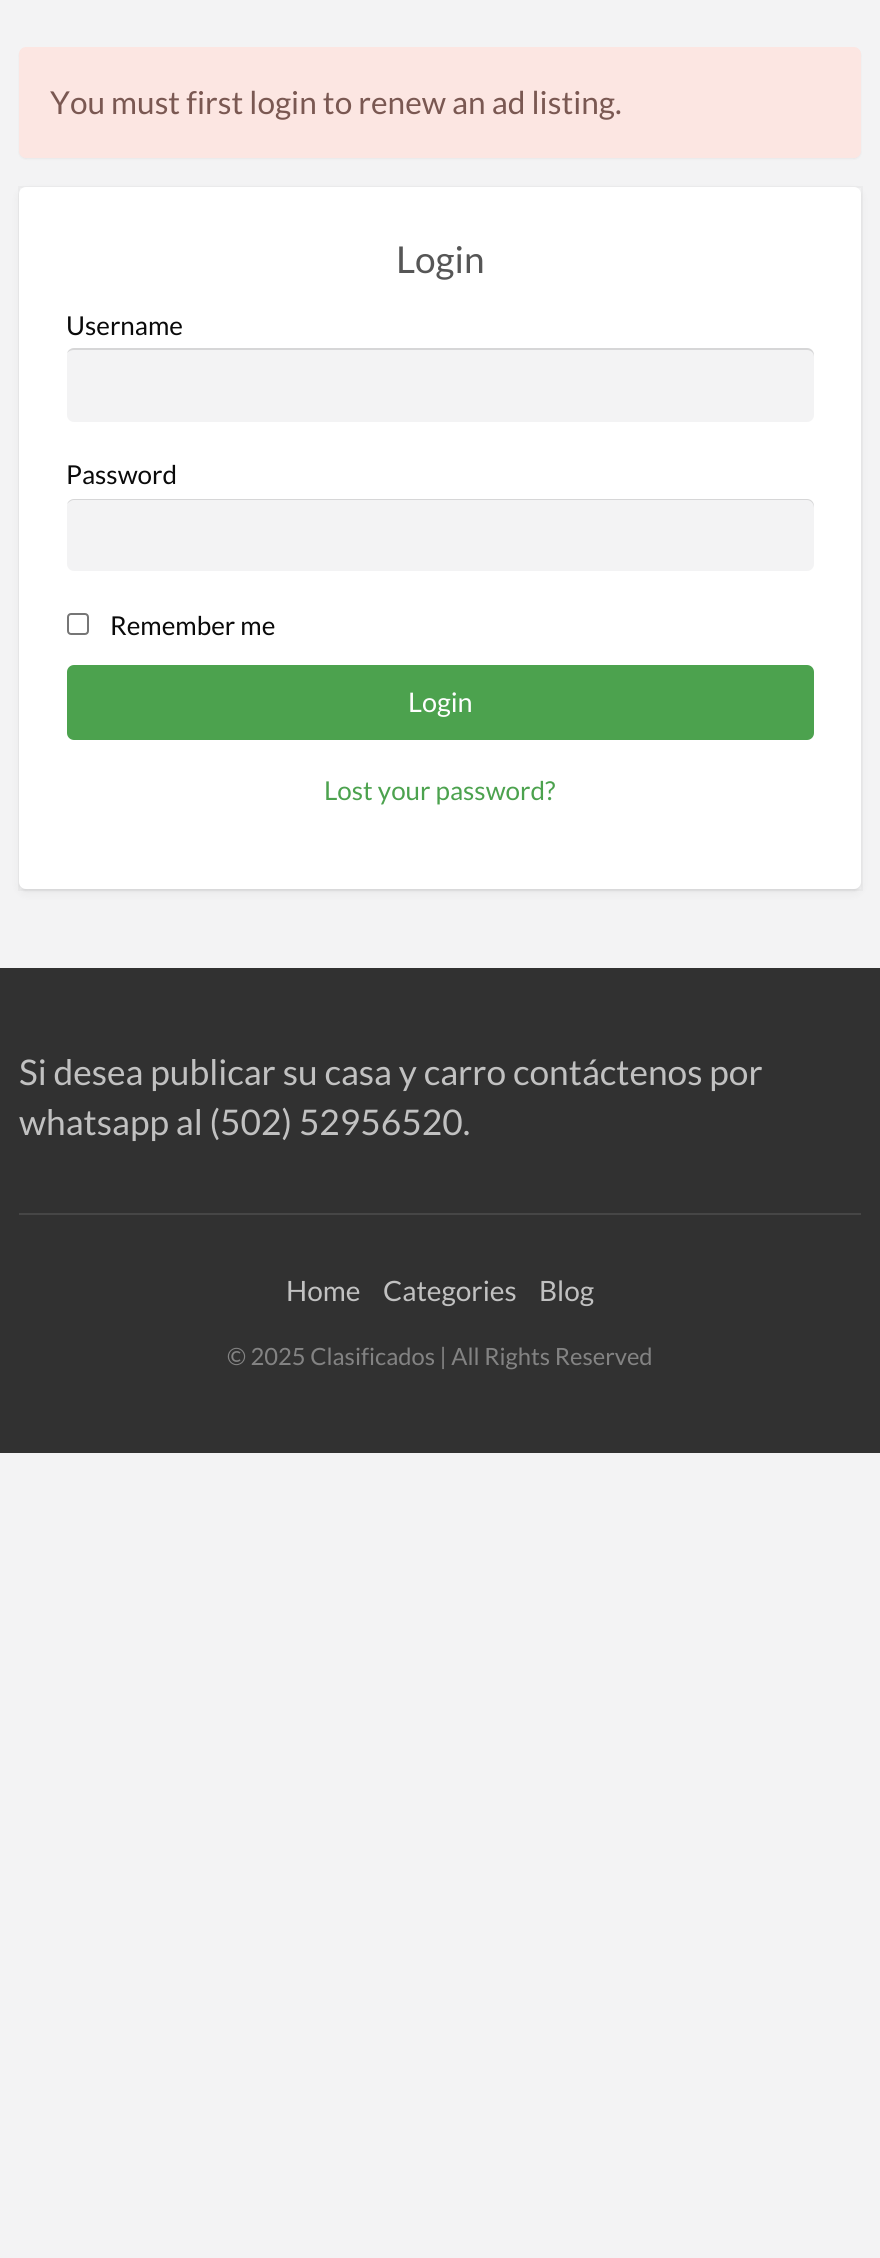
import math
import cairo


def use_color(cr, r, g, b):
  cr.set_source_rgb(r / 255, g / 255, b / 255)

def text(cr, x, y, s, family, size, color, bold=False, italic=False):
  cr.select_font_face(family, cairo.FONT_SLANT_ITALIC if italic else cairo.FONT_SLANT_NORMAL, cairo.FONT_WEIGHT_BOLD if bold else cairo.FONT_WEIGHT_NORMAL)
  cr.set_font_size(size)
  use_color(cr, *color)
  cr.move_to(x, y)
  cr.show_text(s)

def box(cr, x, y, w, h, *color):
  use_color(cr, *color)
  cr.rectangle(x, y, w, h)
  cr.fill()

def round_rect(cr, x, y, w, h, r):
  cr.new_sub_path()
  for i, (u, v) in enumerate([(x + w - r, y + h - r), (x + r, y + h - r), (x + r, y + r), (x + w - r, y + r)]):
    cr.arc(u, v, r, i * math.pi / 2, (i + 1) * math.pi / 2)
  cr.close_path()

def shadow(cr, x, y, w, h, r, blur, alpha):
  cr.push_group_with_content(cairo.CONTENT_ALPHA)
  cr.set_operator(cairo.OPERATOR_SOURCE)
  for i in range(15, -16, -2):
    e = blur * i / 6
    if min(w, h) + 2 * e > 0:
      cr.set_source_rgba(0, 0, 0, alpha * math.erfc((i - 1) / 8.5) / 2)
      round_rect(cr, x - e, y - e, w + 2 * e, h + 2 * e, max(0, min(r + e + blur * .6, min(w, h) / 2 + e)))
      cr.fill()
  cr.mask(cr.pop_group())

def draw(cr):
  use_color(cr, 243, 243, 244)
  cr.paint()
  use_color(cr, 0, 0, 0)
  shadow(cr, 19, 49, 842, 110, 7, 1, 0.05)
  use_color(cr, 252, 230, 226)
  round_rect(cr, 20, 48, 840, 109, 6)
  cr.fill_preserve()
  cr.stroke()
  use_color(cr, 0, 0, 0)
  shadow(cr, 19, 191, 842, 702, 7, 4.5, 0.05)
  shadow(cr, 19, 189, 842, 702, 7, 1, 0.05)
  cr.rectangle(19, 187, 843, 703)
  cr.set_source_rgba(0, 0, 0, 0.03)
  cr.stroke()
  use_color(cr, 255, 255, 255)
  round_rect(cr, 19, 187, 842, 702, 7)
  cr.fill()
  use_color(cr, 243, 243, 244)
  round_rect(cr, 67, 348, 747, 74, 7)
  cr.fill()
  cr.set_source_rgba(0, 0, 0, 0.12)
  cr.new_path()
  cr.move_to(74, 350)
  cr.line_to(807, 350)
  cr.curve_to(811, 350, 814, 353, 814, 357)
  cr.line_to(814, 355)
  cr.curve_to(814, 351, 811, 348, 807, 348)
  cr.line_to(74, 348)
  cr.curve_to(71, 348, 68, 350, 67, 353)
  cr.curve_to(69, 351, 71, 350, 74, 350)
  cr.close_path()
  cr.fill()
  use_color(cr, 243, 243, 244)
  round_rect(cr, 67, 499, 747, 72, 7)
  cr.fill()
  cr.set_source_rgba(0, 0, 0, 0.12)
  cr.new_path()
  cr.move_to(74, 500)
  cr.line_to(807, 500)
  cr.curve_to(811, 500, 814, 504, 814, 508)
  cr.line_to(814, 506)
  cr.curve_to(814, 502, 811, 499, 807, 499)
  cr.line_to(74, 499)
  cr.curve_to(71, 499, 68, 501, 67, 504)
  cr.curve_to(69, 502, 71, 500, 74, 500)
  cr.close_path()
  cr.fill()
  round_rect(cr, 68, 614, 20, 20, 3)
  use_color(cr, 118, 118, 118)
  cr.stroke()
  use_color(cr, 76, 162, 78)
  round_rect(cr, 67, 665, 747, 75, 7)
  cr.fill()
  box(cr, 0, 968, 880, 485, 49, 49, 49)
  box(cr, 19, 1213, 842, 2, 70, 70, 70)
  text(cr, 50, 114, "You must first login to renew an ad listing.", "Lato", 31.6, (122, 88, 82))
  text(cr, 396, 273, "Login", "Lato", 37, (86, 86, 86))
  text(cr, 66, 335, "Username", "Lato", 26, (10, 10, 10))
  text(cr, 66, 484, "Password", "Lato", 26, (10, 10, 10))
  text(cr, 110, 635, "Remember me", "Lato", 26, (10, 10, 10))
  text(cr, 408, 712, "Login", "Lato", 27, (254, 254, 254))
  text(cr, 324, 800, "Lost your password?", "Lato", 26, (76, 162, 78))
  text(cr, 19, 1085, "Si desea publicar su casa y carro contáctenos por", "Lato", 35.3, (193, 193, 193))
  text(cr, 19, 1135, "whatsapp al (502) 52956520.", "Lato", 35.3, (193, 193, 193))
  text(cr, 286, 1301, "Home", "Lato", 28, (193, 193, 193))
  text(cr, 383, 1301, "Categories", "Lato", 28, (193, 193, 193))
  text(cr, 539, 1301, "Blog", "Lato", 28, (193, 193, 193))
  text(cr, 227, 1365, "© 2025 Clasificados | All Rights Reserved", "Lato", 23.75, (131, 131, 131))


surface = cairo.ImageSurface(cairo.FORMAT_RGB24, 880, 2258)
cr = cairo.Context(surface)
options = cairo.FontOptions()
options.set_hint_metrics(cairo.HINT_METRICS_OFF)
options.set_hint_style(cairo.HINT_STYLE_NONE)
cr.set_font_options(options)
cr.set_miter_limit(4)
draw(cr)
surface.write_to_png("out.png")
